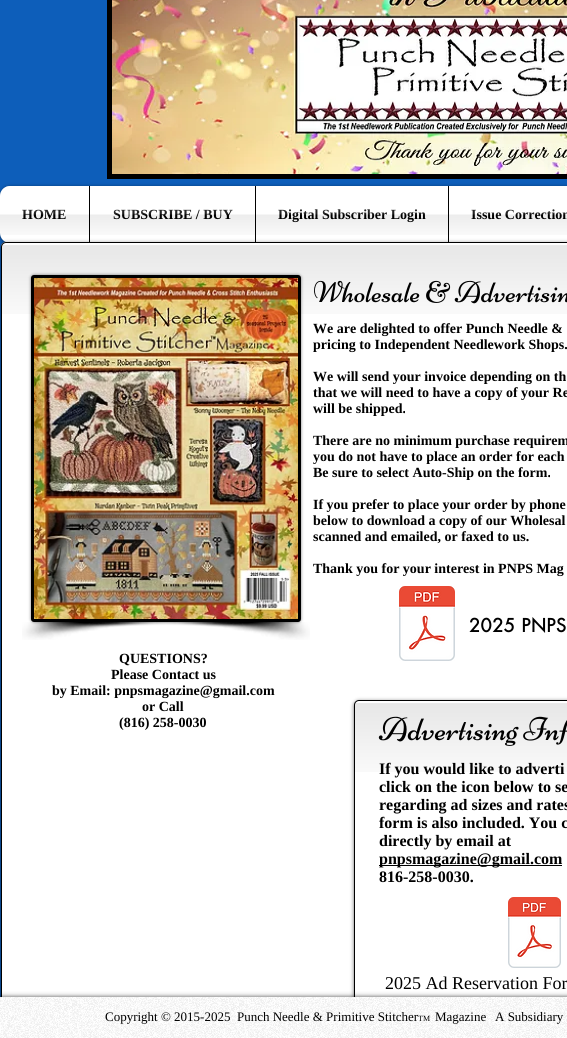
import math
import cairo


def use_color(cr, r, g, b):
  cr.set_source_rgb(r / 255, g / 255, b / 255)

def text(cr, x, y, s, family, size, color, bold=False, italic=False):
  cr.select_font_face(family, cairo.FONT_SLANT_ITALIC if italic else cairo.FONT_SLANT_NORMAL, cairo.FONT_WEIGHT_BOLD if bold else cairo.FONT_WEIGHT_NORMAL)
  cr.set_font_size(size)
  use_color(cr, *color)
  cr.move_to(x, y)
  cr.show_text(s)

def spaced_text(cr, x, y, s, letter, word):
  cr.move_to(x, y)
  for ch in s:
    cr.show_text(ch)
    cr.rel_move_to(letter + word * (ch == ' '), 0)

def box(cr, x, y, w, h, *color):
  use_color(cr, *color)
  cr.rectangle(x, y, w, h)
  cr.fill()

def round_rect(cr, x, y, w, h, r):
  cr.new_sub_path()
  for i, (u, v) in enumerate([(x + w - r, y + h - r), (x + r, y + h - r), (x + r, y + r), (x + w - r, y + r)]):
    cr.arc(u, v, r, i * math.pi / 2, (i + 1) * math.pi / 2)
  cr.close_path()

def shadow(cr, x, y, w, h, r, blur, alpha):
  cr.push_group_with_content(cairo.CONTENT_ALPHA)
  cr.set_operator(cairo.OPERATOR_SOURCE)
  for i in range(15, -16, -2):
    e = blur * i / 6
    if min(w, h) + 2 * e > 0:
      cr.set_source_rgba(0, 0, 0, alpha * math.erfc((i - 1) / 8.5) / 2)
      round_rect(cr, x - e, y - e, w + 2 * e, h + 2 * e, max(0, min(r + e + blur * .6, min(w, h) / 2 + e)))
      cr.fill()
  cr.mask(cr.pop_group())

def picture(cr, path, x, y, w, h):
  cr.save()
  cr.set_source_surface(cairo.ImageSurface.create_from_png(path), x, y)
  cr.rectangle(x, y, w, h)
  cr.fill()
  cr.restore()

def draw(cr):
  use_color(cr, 13, 94, 186)
  cr.paint()
  box(cr, 107, 0, 460, 179, 0, 0, 0)
  picture(cr, "img_01.png", 112, 0, 455, 174)
  use_color(cr, 0, 0, 0)
  shadow(cr, 0, 187, 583, 57, 10, 2, 0.6)
  picture(cr, "img_02.png", 0, 186, 10, 48)
  use_color(cr, 255, 255, 255)
  cr.new_path()
  cr.move_to(10, 186)
  cr.line_to(89, 186)
  cr.line_to(89, 243)
  cr.line_to(10, 243)
  cr.curve_to(4.5, 243, 0, 238.5, 0, 233)
  cr.line_to(0, 196)
  cr.curve_to(0, 190.5, 4.5, 186, 10, 186)
  cr.close_path()
  cr.fill()
  box(cr, 90, 186, 165, 56, 255, 255, 255)
  box(cr, 89, 186, 1, 57, 0, 0, 0)
  box(cr, 256, 186, 192, 56, 255, 255, 255)
  box(cr, 255, 186, 1, 57, 0, 0, 0)
  box(cr, 449, 186, 118, 56, 255, 255, 255)
  box(cr, 448, 186, 1, 57, 0, 0, 0)
  use_color(cr, 0, 0, 0)
  shadow(cr, 1, 243, 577, 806, 5, 2, 0.6)
  use_color(cr, 255, 255, 255)
  round_rect(cr, 1, 242, 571, 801, 5)
  cr.fill()
  picture(cr, "img_07.png", 1, 245, 566, 69)
  round_rect(cr, 1.5, 242.5, 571, 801, 4.5)
  use_color(cr, 0, 0, 0)
  cr.set_line_width(1)
  cr.stroke()
  use_color(cr, 0, 0, 0)
  shadow(cr, 31, 275, 270, 347, 3, 1.5, 0.5)
  round_rect(cr, 32.5, 276.5, 267, 344, 1.5)
  use_color(cr, 0, 0, 0)
  cr.set_line_width(3)
  cr.stroke()
  picture(cr, "img_08.png", 34, 278, 264, 341)
  picture(cr, "img_09.png", 22, 622, 154, 18)
  picture(cr, "img_10.png", 156, 622, 154, 18)
  picture(cr, "img_11.png", 314, 280, 253, 24)
  picture(cr, "img_12.png", 399, 586, 56, 75)
  use_color(cr, 0, 0, 0)
  shadow(cr, 354, 701, 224, 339, 5, 2, 0.6)
  use_color(cr, 255, 255, 255)
  round_rect(cr, 354, 700, 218, 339, 5)
  cr.fill()
  picture(cr, "img_13.png", 354, 703, 213, 69)
  round_rect(cr, 354.5, 700.5, 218, 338, 4.5)
  use_color(cr, 0, 0, 0)
  cr.set_line_width(1)
  cr.stroke()
  picture(cr, "img_14.png", 378, 716, 189, 30)
  box(cr, 379, 865, 183, 1, 0, 0, 0)
  picture(cr, "img_15.png", 508, 897, 53, 71)
  use_color(cr, 0, 0, 0)
  shadow(cr, 0, 997, 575, 41, 0, 2.5, 0.7)
  box(cr, 0, 997, 567, 41, 255, 255, 255)
  picture(cr, "img_16.png", 0, 997, 567, 41)
  text(cr, 22, 219, "HOME", "Liberation Serif", 14, (0, 0, 0), bold=True)
  picture(cr, "img_03.png", 0, 186, 89, 49)
  text(cr, 113, 219, "SUBSCRIBE / BUY", "Liberation Serif", 14, (0, 0, 0), bold=True)
  picture(cr, "img_04.png", 90, 209, 165, 26)
  text(cr, 278, 219, "Digital Subscriber Login", "Liberation Serif", 14, (0, 0, 0), bold=True)
  picture(cr, "img_05.png", 256, 209, 192, 26)
  text(cr, 471, 219, "Issue Correction", "Liberation Serif", 14, (0, 0, 0), bold=True)
  picture(cr, "img_06.png", 449, 209, 118, 26)
  text(cr, 313, 333, "We are delighted to offer Punch Needle &", "Liberation Serif", 14, (0, 0, 0), bold=True)
  text(cr, 313, 349, "pricing to Independent Needlework Shops.", "Liberation Serif", 14, (0, 0, 0), bold=True)
  text(cr, 313, 381, "We will send your invoice depending on th", "Liberation Serif", 14, (0, 0, 0), bold=True)
  text(cr, 313, 397, "that we will need to have a copy of your Re", "Liberation Serif", 14, (0, 0, 0), bold=True)
  text(cr, 313, 413, "will be shipped.", "Liberation Serif", 14, (0, 0, 0), bold=True)
  text(cr, 313, 445, "There are no minimum purchase requirem", "Liberation Serif", 14, (0, 0, 0), bold=True)
  text(cr, 313, 461, "you do not have to place an order for each", "Liberation Serif", 14, (0, 0, 0), bold=True)
  text(cr, 313, 477, "Be sure to select Auto-Ship on the form.", "Liberation Serif", 14, (0, 0, 0), bold=True)
  text(cr, 313, 509, "If you prefer to place your order by phone", "Liberation Serif", 14, (0, 0, 0), bold=True)
  text(cr, 313, 525, "below to download a copy of our Wholesal", "Liberation Serif", 14, (0, 0, 0), bold=True)
  text(cr, 313, 541, "scanned and emailed, or faxed to us.", "Liberation Serif", 14, (0, 0, 0), bold=True)
  text(cr, 313, 573, "Thank you for your interest in PNPS Mag", "Liberation Serif", 14, (0, 0, 0), bold=True)
  cr.select_font_face("futura", cairo.FONT_SLANT_NORMAL, cairo.FONT_WEIGHT_BOLD)
  cr.set_font_size(18)
  spaced_text(cr, 469, 632, "2025 PNPS", 0.5, 0)
  text(cr, 119, 663, "QUESTIONS?", "Liberation Serif", 14, (0, 0, 0), bold=True)
  text(cr, 111, 679, "Please Contact us", "Liberation Serif", 14, (0, 0, 0), bold=True)
  text(cr, 52, 695, "by Email: pnpsmagazine@gmail.com", "Liberation Serif", 14, (0, 0, 0), bold=True)
  text(cr, 142, 711, "or Call", "Liberation Serif", 14, (0, 0, 0), bold=True)
  text(cr, 119, 727, "(816) 258-0030", "Liberation Serif", 14, (0, 0, 0), bold=True)
  text(cr, 379, 774, "If you would like to adverti", "Liberation Serif", 16, (0, 0, 0), bold=True)
  text(cr, 379, 792, "click on the icon below to se", "Liberation Serif", 16, (0, 0, 0), bold=True)
  text(cr, 379, 810, "regarding ad sizes and rates", "Liberation Serif", 16, (0, 0, 0), bold=True)
  text(cr, 379, 828, "form is also included. You c", "Liberation Serif", 16, (0, 0, 0), bold=True)
  text(cr, 379, 846, "directly by email at", "Liberation Serif", 16, (0, 0, 0), bold=True)
  text(cr, 379, 864, "pnpsmagazine@gmail.com", "Liberation Serif", 16, (0, 0, 0), bold=True)
  text(cr, 379, 882, "816-258-0030.", "Liberation Serif", 16, (0, 0, 0), bold=True)
  text(cr, 385, 989, "2025 Ad Reservation For", "Liberation Serif", 18, (0, 0, 0))
  text(cr, 105, 1021, "Copyright © 2015-2025  Punch Needle & Primitive Stitcher", "Liberation Serif", 13, (0, 0, 0))
  text(cr, 418, 1021, "TM", "Liberation Serif", 8, (0, 0, 0))
  text(cr, 435, 1021, "Magazine", "Liberation Serif", 13, (0, 0, 0))
  text(cr, 495, 1021, "A Subsidiary", "Liberation Serif", 13, (0, 0, 0))


surface = cairo.ImageSurface(cairo.FORMAT_RGB24, 567, 1038)
cr = cairo.Context(surface)
options = cairo.FontOptions()
options.set_hint_metrics(cairo.HINT_METRICS_OFF)
options.set_hint_style(cairo.HINT_STYLE_NONE)
cr.set_font_options(options)
cr.set_miter_limit(4)
draw(cr)
surface.write_to_png("out.png")
